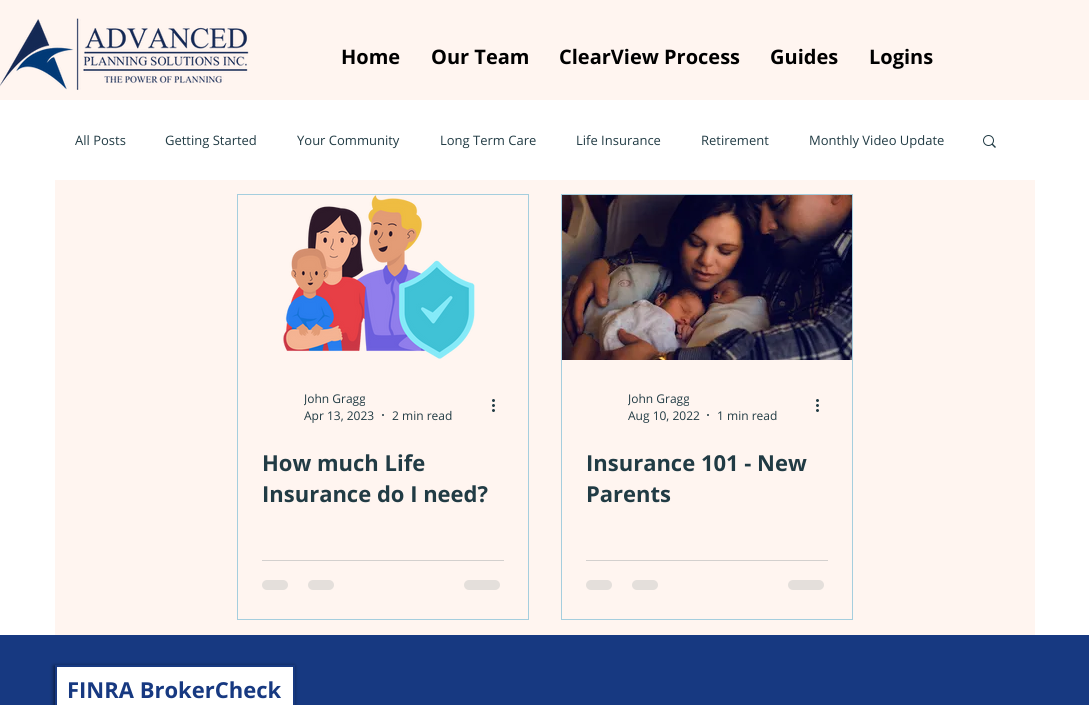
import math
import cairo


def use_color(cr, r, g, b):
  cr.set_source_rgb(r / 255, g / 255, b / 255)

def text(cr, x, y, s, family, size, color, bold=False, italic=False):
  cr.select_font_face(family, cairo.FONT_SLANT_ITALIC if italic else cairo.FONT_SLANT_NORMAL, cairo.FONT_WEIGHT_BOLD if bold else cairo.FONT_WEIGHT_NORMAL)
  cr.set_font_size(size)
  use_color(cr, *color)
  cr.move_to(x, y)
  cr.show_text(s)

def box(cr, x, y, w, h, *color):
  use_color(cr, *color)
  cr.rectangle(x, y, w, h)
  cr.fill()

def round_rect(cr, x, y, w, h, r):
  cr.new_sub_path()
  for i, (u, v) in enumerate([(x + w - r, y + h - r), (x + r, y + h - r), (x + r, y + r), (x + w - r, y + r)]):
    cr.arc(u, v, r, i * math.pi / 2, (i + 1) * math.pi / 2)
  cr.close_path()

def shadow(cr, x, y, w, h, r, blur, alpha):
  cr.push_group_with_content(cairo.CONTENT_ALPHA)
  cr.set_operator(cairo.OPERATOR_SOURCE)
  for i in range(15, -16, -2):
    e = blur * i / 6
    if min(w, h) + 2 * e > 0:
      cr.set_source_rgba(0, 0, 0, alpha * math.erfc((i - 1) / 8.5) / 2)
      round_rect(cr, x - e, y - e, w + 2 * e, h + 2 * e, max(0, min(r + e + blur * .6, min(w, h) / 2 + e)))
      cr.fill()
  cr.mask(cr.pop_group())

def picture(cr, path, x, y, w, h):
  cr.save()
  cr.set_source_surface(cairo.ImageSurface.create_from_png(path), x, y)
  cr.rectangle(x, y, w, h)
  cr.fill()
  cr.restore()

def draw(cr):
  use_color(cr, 255, 245, 240)
  cr.paint()
  picture(cr, "img_01.png", 0, 18, 249, 72)
  box(cr, 0, 100, 1089, 535, 255, 255, 255)
  box(cr, 55, 180, 980, 455, 255, 245, 240)
  picture(cr, "img_02.png", 983, 135, 13, 13)
  cr.rectangle(237.5, 194.5, 291, 425)
  use_color(cr, 165, 206, 222)
  cr.set_line_width(1)
  cr.stroke()
  picture(cr, "img_03.png", 283, 195, 192, 164)
  use_color(cr, 33, 59, 68)
  cr.arc(383, 415, 1, 0, 2 * math.pi)
  cr.fill()
  picture(cr, "img_04.png", 492, 399, 3, 13)
  box(cr, 262, 560, 242, 1, 211, 208, 206)
  use_color(cr, 228, 223, 219)
  round_rect(cr, 262, 580, 26, 10, 5)
  cr.fill()
  round_rect(cr, 308, 580, 26, 10, 5)
  cr.fill()
  round_rect(cr, 464, 580, 36, 10, 5)
  cr.fill()
  cr.rectangle(561.5, 194.5, 291, 425)
  use_color(cr, 165, 206, 222)
  cr.stroke()
  picture(cr, "img_05.png", 562, 195, 290, 165)
  use_color(cr, 33, 59, 68)
  cr.arc(708, 415, 1, 0, 2 * math.pi)
  cr.fill()
  picture(cr, "img_04.png", 816, 399, 3, 13)
  box(cr, 586, 560, 242, 1, 211, 208, 206)
  use_color(cr, 228, 223, 219)
  round_rect(cr, 586, 580, 26, 10, 5)
  cr.fill()
  round_rect(cr, 632, 580, 26, 10, 5)
  cr.fill()
  round_rect(cr, 788, 580, 36, 10, 5)
  cr.fill()
  box(cr, 0, 635, 1089, 70, 23, 57, 129)
  use_color(cr, 0, 0, 0)
  shadow(cr, 54, 666, 240, 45, 0, 2, 0.6)
  use_color(cr, 255, 255, 255)
  cr.rectangle(56, 666, 238, 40)
  cr.fill_preserve()
  use_color(cr, 23, 57, 129)
  cr.set_line_width(2)
  cr.stroke()
  text(cr, 341, 64, "Home", "Open Sans", 20, (0, 0, 0), bold=True)
  text(cr, 431, 64, "Our Team", "Open Sans", 20, (0, 0, 0), bold=True)
  text(cr, 559, 64, "ClearView Process", "Open Sans", 20, (0, 0, 0), bold=True)
  text(cr, 770, 64, "Guides", "Open Sans", 20, (0, 0, 0), bold=True)
  text(cr, 869, 64, "Logins", "Open Sans", 20, (0, 0, 0), bold=True)
  text(cr, 75, 145, "All Posts", "Open Sans", 13, (33, 59, 68))
  text(cr, 165, 145, "Getting Started", "Open Sans", 13, (33, 59, 68))
  text(cr, 297, 145, "Your Community", "Open Sans", 13, (33, 59, 68))
  text(cr, 440, 145, "Long Term Care", "Open Sans", 13, (33, 59, 68))
  text(cr, 576, 145, "Life Insurance", "Open Sans", 13, (33, 59, 68))
  text(cr, 701, 145, "Retirement", "Open Sans", 13, (33, 59, 68))
  text(cr, 809, 145, "Monthly Video Update", "Open Sans", 13, (33, 59, 68))
  cr.save()
  cr.rectangle(304, 390, 61, 16)
  cr.clip()
  text(cr, 304, 403, "John Gragg", "Open Sans", 12, (33, 59, 68))
  cr.restore()
  text(cr, 304, 420, "Apr 13, 2023", "Open Sans", 12, (33, 59, 68))
  text(cr, 392, 420, "2 min read", "Open Sans", 12, (33, 59, 68))
  text(cr, 262, 471, "How much Life", "Open Sans", 22, (33, 59, 68), bold=True)
  text(cr, 262, 502, "Insurance do I need?", "Open Sans", 22, (33, 59, 68), bold=True)
  cr.save()
  cr.rectangle(628, 390, 61, 16)
  cr.clip()
  text(cr, 628, 403, "John Gragg", "Open Sans", 12, (33, 59, 68))
  cr.restore()
  text(cr, 628, 420, "Aug 10, 2022", "Open Sans", 12, (33, 59, 68))
  text(cr, 717, 420, "1 min read", "Open Sans", 12, (33, 59, 68))
  text(cr, 586, 471, "Insurance 101 - New", "Open Sans", 22, (33, 59, 68), bold=True)
  text(cr, 586, 502, "Parents", "Open Sans", 22, (33, 59, 68), bold=True)
  text(cr, 67, 698, "FINRA BrokerCheck", "Open Sans", 22, (23, 57, 129), bold=True)


surface = cairo.ImageSurface(cairo.FORMAT_RGB24, 1089, 705)
cr = cairo.Context(surface)
options = cairo.FontOptions()
options.set_hint_metrics(cairo.HINT_METRICS_OFF)
options.set_hint_style(cairo.HINT_STYLE_NONE)
cr.set_font_options(options)
cr.set_miter_limit(4)
draw(cr)
surface.write_to_png("out.png")
